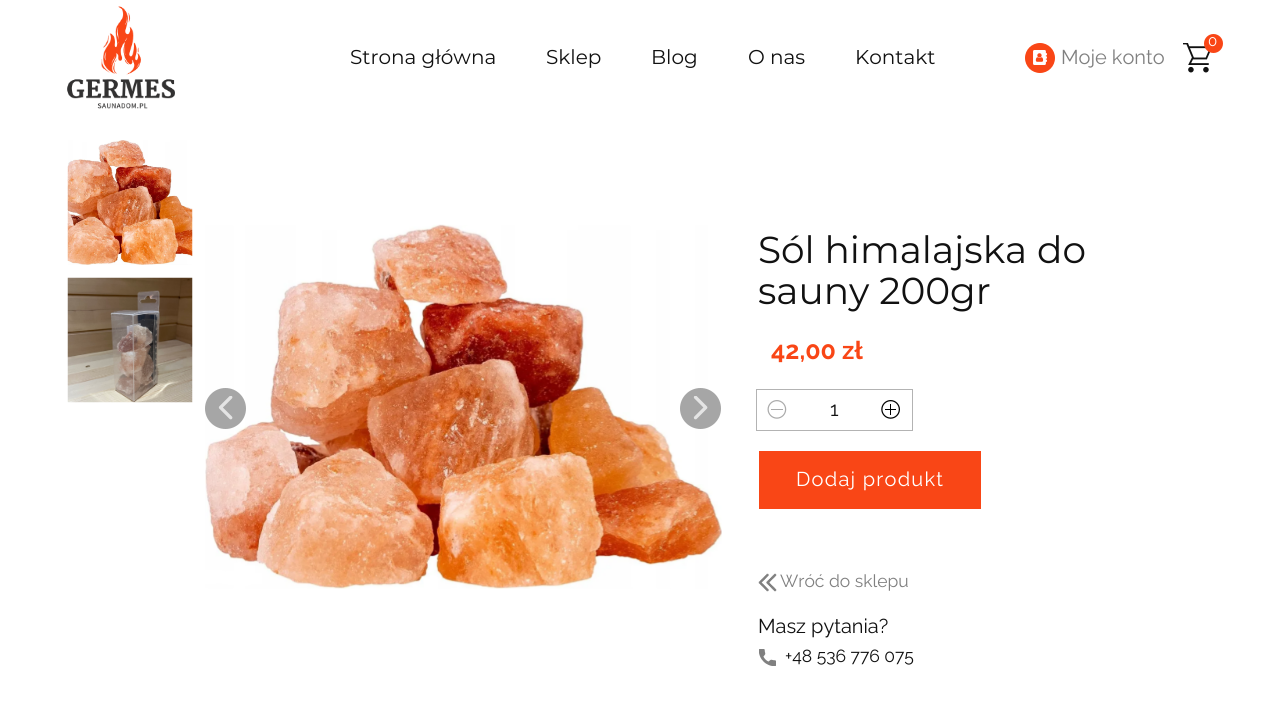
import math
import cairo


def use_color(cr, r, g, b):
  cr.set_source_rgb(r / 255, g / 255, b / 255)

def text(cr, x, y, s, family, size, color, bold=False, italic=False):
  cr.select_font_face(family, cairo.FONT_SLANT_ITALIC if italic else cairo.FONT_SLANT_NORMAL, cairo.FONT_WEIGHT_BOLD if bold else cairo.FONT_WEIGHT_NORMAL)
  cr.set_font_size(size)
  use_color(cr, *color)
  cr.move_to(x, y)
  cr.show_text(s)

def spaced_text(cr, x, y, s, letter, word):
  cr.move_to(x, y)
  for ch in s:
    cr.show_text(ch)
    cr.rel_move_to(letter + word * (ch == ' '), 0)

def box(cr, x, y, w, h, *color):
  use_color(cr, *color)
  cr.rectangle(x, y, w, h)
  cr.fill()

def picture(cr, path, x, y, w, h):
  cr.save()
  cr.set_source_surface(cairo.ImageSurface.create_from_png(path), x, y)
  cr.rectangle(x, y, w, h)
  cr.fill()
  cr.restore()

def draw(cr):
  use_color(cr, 255, 255, 255)
  cr.paint()
  picture(cr, "img_01.png", 67, 6, 108, 103)
  picture(cr, "img_02.png", 1183, 43, 27, 30)
  use_color(cr, 249, 70, 22)
  cr.arc(1213.5, 43.5, 9.5, 0, 2 * math.pi)
  cr.fill()
  cr.arc(1040, 58, 15, 0, 2 * math.pi)
  cr.fill()
  picture(cr, "img_03.png", 1033, 50, 14, 15)
  picture(cr, "img_04.png", 67, 140, 126, 125)
  picture(cr, "img_05.png", 67, 277, 126, 126)
  picture(cr, "img_06.png", 205, 224, 517, 365)
  use_color(cr, 166, 166, 166)
  cr.arc(225.5, 408.5, 20.5, 0, 2 * math.pi)
  cr.fill()
  picture(cr, "img_07.png", 218, 396, 15, 24)
  cr.arc(700.5, 408.5, 20.5, 0, 2 * math.pi)
  cr.fill()
  picture(cr, "img_08.png", 693, 396, 15, 24)
  cr.rectangle(756.5, 389.5, 156, 41)
  use_color(cr, 179, 179, 179)
  cr.set_line_width(1)
  cr.stroke()
  picture(cr, "img_09.png", 767, 400, 20, 19)
  picture(cr, "img_10.png", 881, 400, 19, 19)
  box(cr, 759, 451, 222, 58, 249, 70, 22)
  picture(cr, "img_11.png", 758, 573, 19, 19)
  picture(cr, "img_12.png", 759, 649, 17, 17)
  text(cr, 1208, 46, "0", "Raleway", 15, (255, 255, 255))
  text(cr, 350, 64, "Strona główna", "Montserrat", 20, (17, 17, 17))
  text(cr, 546, 64, "Sklep", "Montserrat", 20, (17, 17, 17))
  text(cr, 651, 64, "Blog", "Montserrat", 20, (17, 17, 17))
  text(cr, 748, 64, "O nas", "Montserrat", 20, (17, 17, 17))
  text(cr, 855, 64, "Kontakt", "Montserrat", 20, (17, 17, 17))
  text(cr, 1061, 64, "Moje konto", "Raleway", 20, (128, 128, 128))
  text(cr, 758, 263, "Sól himalajska do", "Montserrat", 37.5, (17, 17, 17))
  text(cr, 758, 304, "sauny 200gr", "Montserrat", 37.5, (17, 17, 17))
  text(cr, 771, 359, "42,00 zł", "Raleway", 25, (249, 70, 22), bold=True)
  text(cr, 830, 416, "1", "Raleway", 20, (17, 17, 17))
  use_color(cr, 255, 255, 255)
  spaced_text(cr, 796, 486, "Dodaj produkt", 1.25, 0)
  text(cr, 780, 587, "Wróć do sklepu", "Raleway", 17.5, (128, 128, 128))
  text(cr, 758, 633, "Masz pytania?", "Raleway", 20, (17, 17, 17))
  text(cr, 785, 662, "+48 536 776 075", "Raleway", 17.5, (17, 17, 17))


surface = cairo.ImageSurface(cairo.FORMAT_RGB24, 1285, 718)
cr = cairo.Context(surface)
options = cairo.FontOptions()
options.set_hint_metrics(cairo.HINT_METRICS_OFF)
options.set_hint_style(cairo.HINT_STYLE_NONE)
cr.set_font_options(options)
cr.set_miter_limit(4)
draw(cr)
surface.write_to_png("out.png")
